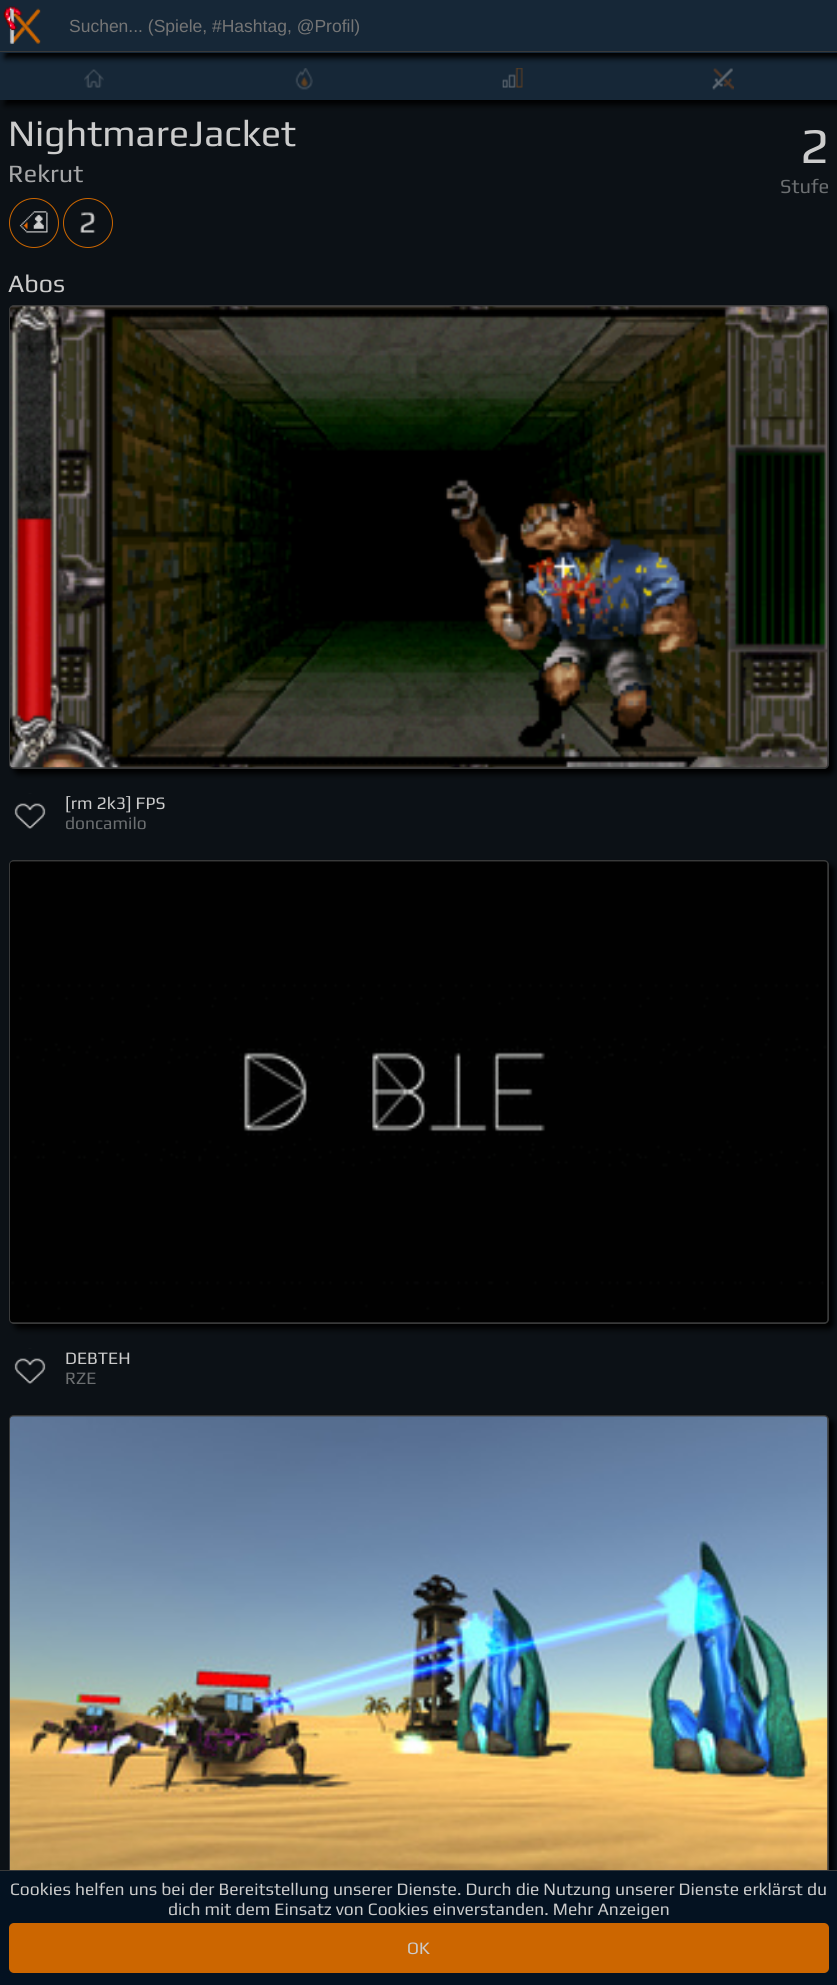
import math
import cairo


def use_color(cr, r, g, b):
  cr.set_source_rgb(r / 255, g / 255, b / 255)

def text(cr, x, y, s, family, size, color, bold=False, italic=False):
  cr.select_font_face(family, cairo.FONT_SLANT_ITALIC if italic else cairo.FONT_SLANT_NORMAL, cairo.FONT_WEIGHT_BOLD if bold else cairo.FONT_WEIGHT_NORMAL)
  cr.set_font_size(size)
  use_color(cr, *color)
  cr.move_to(x, y)
  cr.show_text(s)

def box(cr, x, y, w, h, *color):
  use_color(cr, *color)
  cr.rectangle(x, y, w, h)
  cr.fill()

def round_rect(cr, x, y, w, h, r):
  cr.new_sub_path()
  for i, (u, v) in enumerate([(x + w - r, y + h - r), (x + r, y + h - r), (x + r, y + r), (x + w - r, y + r)]):
    cr.arc(u, v, r, i * math.pi / 2, (i + 1) * math.pi / 2)
  cr.close_path()

def shadow(cr, x, y, w, h, r, blur, alpha):
  cr.push_group_with_content(cairo.CONTENT_ALPHA)
  cr.set_operator(cairo.OPERATOR_SOURCE)
  for i in range(15, -16, -2):
    e = blur * i / 6
    if min(w, h) + 2 * e > 0:
      cr.set_source_rgba(0, 0, 0, alpha * math.erfc((i - 1) / 8.5) / 2)
      round_rect(cr, x - e, y - e, w + 2 * e, h + 2 * e, max(0, min(r + e + blur * .6, min(w, h) / 2 + e)))
      cr.fill()
  cr.mask(cr.pop_group())

def picture(cr, path, x, y, w, h):
  cr.save()
  cr.set_source_surface(cairo.ImageSurface.create_from_png(path), x, y)
  cr.rectangle(x, y, w, h)
  cr.fill()
  cr.restore()

def draw(cr):
  use_color(cr, 12, 17, 22)
  cr.paint()
  use_color(cr, 0, 0, 0)
  shadow(cr, 5, 58, 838, 47, 0, 3, 1)
  box(cr, 0, 53, 837, 47, 22, 39, 55)
  use_color(cr, 0, 0, 0)
  shadow(cr, 5, 5, 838, 53, 0, 3, 1)
  box(cr, 0, 0, 837, 53, 22, 39, 55)
  picture(cr, "img_01.png", 3, 6, 38, 38)
  box(cr, 0, 51, 837, 1, 57, 58, 58)
  picture(cr, "img_02.png", 84, 69, 20, 19)
  picture(cr, "img_03.png", 295, 68, 18, 22)
  picture(cr, "img_04.png", 502, 68, 21, 20)
  picture(cr, "img_05.png", 712, 68, 22, 22)
  cr.arc(34, 223, 24.5, 0, 2 * math.pi)
  use_color(cr, 204, 102, 0)
  cr.set_line_width(1)
  cr.stroke()
  cr.arc(88, 223, 24.5, 0, 2 * math.pi)
  cr.stroke()
  picture(cr, "img_06.png", 19, 211, 29, 22)
  picture(cr, "img_07.png", 80, 212, 16, 21)
  use_color(cr, 0, 0, 0)
  shadow(cr, 14, 310, 820, 464, 5, 3, 1)
  use_color(cr, 57, 58, 58)
  round_rect(cr, 9.5, 305.5, 819, 463, 4.5)
  cr.fill_preserve()
  cr.stroke()
  picture(cr, "img_08.png", 10, 306, 818, 462)
  picture(cr, "img_09.png", 14, 793, 32, 36)
  use_color(cr, 0, 0, 0)
  shadow(cr, 14, 865, 820, 464, 5, 3, 1)
  use_color(cr, 57, 58, 58)
  round_rect(cr, 9.5, 860.5, 819, 463, 4.5)
  cr.fill_preserve()
  cr.stroke()
  picture(cr, "img_10.png", 10, 861, 818, 462)
  picture(cr, "img_11.png", 14, 1348, 32, 36)
  use_color(cr, 0, 0, 0)
  shadow(cr, 14, 1420, 820, 464, 5, 3, 1)
  use_color(cr, 57, 58, 58)
  round_rect(cr, 9.5, 1415.5, 819, 463, 4.5)
  cr.fill_preserve()
  cr.stroke()
  picture(cr, "img_12.png", 10, 1416, 818, 454)
  box(cr, 0, 1871, 837, 114, 4, 18, 33)
  box(cr, 0, 1870, 837, 1, 57, 58, 58)
  use_color(cr, 204, 102, 0)
  round_rect(cr, 9, 1923, 820, 50, 5)
  cr.fill()
  text(cr, 69, 32, "Suchen... (Spiele, #Hashtag, @Profil)", "Liberation Sans", 17.5, (117, 117, 117))
  text(cr, 8, 146, "NightmareJacket", "Play", 37.5, (204, 204, 204))
  text(cr, 8, 182, "Rekrut", "Play", 25, (166, 167, 168))
  text(cr, 800, 163, "2", "Play", 50, (204, 204, 204))
  text(cr, 780, 193, "Stufe", "Play", 20, (108, 111, 113))
  text(cr, 8, 292, "Abos", "Play", 25, (204, 204, 204))
  text(cr, 65, 809, "[rm 2k3] FPS", "Play", 17.5, (204, 204, 204))
  text(cr, 65, 829, "doncamilo", "Play", 17.5, (108, 111, 113))
  text(cr, 65, 1364, "DEBTEH", "Play", 17.5, (204, 204, 204))
  text(cr, 65, 1384, "RZE", "Play", 17.5, (108, 111, 113))
  text(cr, 10, 1895, "Cookies helfen uns bei der Bereitstellung unserer Dienste. Durch die Nutzung unserer Dienste erklärst du", "Play", 17.5, (204, 204, 204))
  text(cr, 168, 1915, "dich mit dem Einsatz von Cookies einverstanden. Mehr Anzeigen", "Play", 17.5, (204, 204, 204))
  text(cr, 407, 1954, "OK", "Play", 17.5, (204, 204, 204))


surface = cairo.ImageSurface(cairo.FORMAT_RGB24, 837, 1985)
cr = cairo.Context(surface)
options = cairo.FontOptions()
options.set_hint_metrics(cairo.HINT_METRICS_OFF)
options.set_hint_style(cairo.HINT_STYLE_NONE)
cr.set_font_options(options)
cr.set_miter_limit(4)
draw(cr)
surface.write_to_png("out.png")
